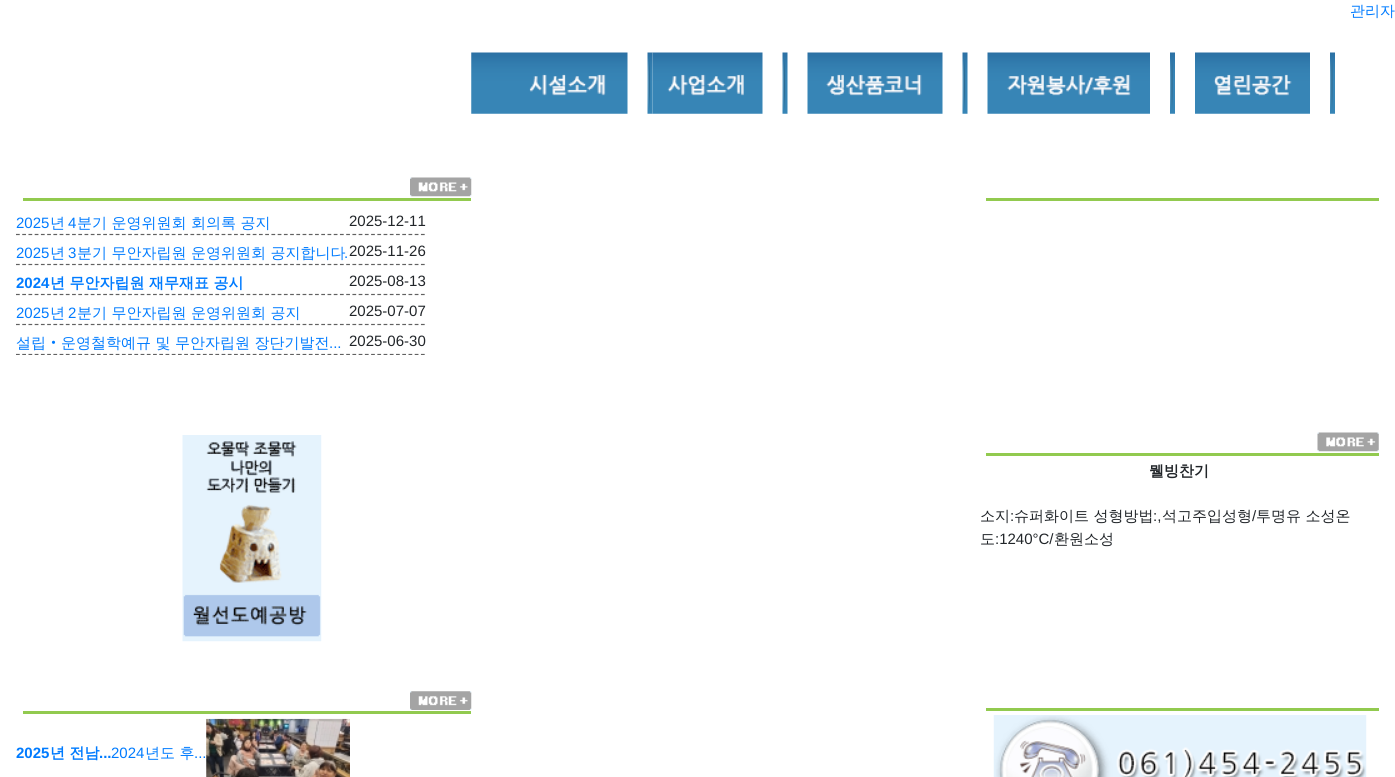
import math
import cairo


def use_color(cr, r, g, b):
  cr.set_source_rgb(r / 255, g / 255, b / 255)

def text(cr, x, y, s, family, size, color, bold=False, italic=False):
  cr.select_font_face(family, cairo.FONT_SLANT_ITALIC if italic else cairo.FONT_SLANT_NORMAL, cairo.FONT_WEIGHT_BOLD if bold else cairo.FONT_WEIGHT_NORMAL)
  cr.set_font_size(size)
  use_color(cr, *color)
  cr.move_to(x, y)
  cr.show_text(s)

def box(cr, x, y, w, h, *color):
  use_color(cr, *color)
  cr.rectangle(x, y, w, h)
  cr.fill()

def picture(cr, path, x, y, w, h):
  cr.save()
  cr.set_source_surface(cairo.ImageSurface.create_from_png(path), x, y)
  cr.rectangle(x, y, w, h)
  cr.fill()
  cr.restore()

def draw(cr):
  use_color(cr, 255, 255, 255)
  cr.paint()
  picture(cr, "img_01.png", 471, 52, 157, 62)
  picture(cr, "img_02.png", 647, 52, 6, 62)
  picture(cr, "img_03.png", 652, 52, 111, 62)
  picture(cr, "img_02.png", 782, 52, 6, 62)
  picture(cr, "img_04.png", 807, 52, 136, 62)
  picture(cr, "img_02.png", 962, 52, 6, 62)
  picture(cr, "img_05.png", 987, 52, 163, 62)
  picture(cr, "img_06.png", 1170, 52, 5, 62)
  picture(cr, "img_07.png", 1195, 52, 115, 62)
  picture(cr, "img_08.png", 1330, 52, 5, 62)
  picture(cr, "img_09.png", 410, 177, 62, 20)
  box(cr, 23, 198, 448, 3, 146, 202, 79)
  cr.new_path()
  cr.move_to(16, 234.5)
  cr.line_to(425, 234.5)
  use_color(cr, 97, 97, 97)
  cr.set_line_width(1.2)
  cr.set_dash([3.75, 2.48])
  cr.stroke()
  cr.new_path()
  cr.move_to(16, 264.5)
  cr.line_to(425, 264.5)
  cr.stroke()
  cr.new_path()
  cr.move_to(16, 294.5)
  cr.line_to(425, 294.5)
  cr.stroke()
  cr.new_path()
  cr.move_to(16, 324.5)
  cr.line_to(425, 324.5)
  cr.stroke()
  cr.save()
  cr.rectangle(16, 205, 455, 150)
  cr.clip()
  cr.new_path()
  cr.move_to(16, 354.5)
  cr.line_to(425, 354.5)
  cr.stroke()
  cr.restore()
  picture(cr, "img_10.png", 182, 435, 140, 207)
  picture(cr, "img_11.png", 410, 691, 62, 19)
  box(cr, 23, 711, 448, 3, 146, 202, 79)
  picture(cr, "img_12.png", 206, 718, 144, 59)
  box(cr, 986, 198, 393, 3, 146, 202, 79)
  picture(cr, "img_13.png", 1317, 432, 62, 20)
  box(cr, 986, 453, 393, 3, 146, 202, 79)
  box(cr, 986, 708, 393, 3, 146, 202, 79)
  picture(cr, "img_14.png", 993, 715, 374, 62)
  text(cr, 1350, 16, "관리자", "WenQuanYi Zen Hei Medium", 15, (0, 123, 255))
  text(cr, 16, 228, "2025", "Liberation Sans", 15, (0, 123, 255))
  text(cr, 50, 228, "년", "WenQuanYi Zen Hei Medium", 15, (0, 123, 255))
  text(cr, 68, 228, "4", "Liberation Sans", 15, (0, 123, 255))
  text(cr, 77, 228, "분기 운영위원회 회의록 공지", "WenQuanYi Zen Hei Medium", 15, (0, 123, 255))
  text(cr, 349, 226, "2025-12-11", "Liberation Sans", 15, (33, 37, 41))
  text(cr, 16, 258, "2025", "Liberation Sans", 15, (0, 123, 255))
  text(cr, 50, 258, "년", "WenQuanYi Zen Hei Medium", 15, (0, 123, 255))
  text(cr, 68, 258, "3", "Liberation Sans", 15, (0, 123, 255))
  text(cr, 77, 258, "분기 무안자립원 운영위원회 공지합니다", "WenQuanYi Zen Hei Medium", 15, (0, 123, 255))
  text(cr, 344, 258, ".", "Liberation Sans", 15, (0, 123, 255))
  text(cr, 349, 256, "2025-11-26", "Liberation Sans", 15, (33, 37, 41))
  text(cr, 16, 288, "2024", "Liberation Sans", 15, (0, 123, 255), bold=True)
  text(cr, 50, 288, "년 무안자립원 재무재표 공시", "WenQuanYi Zen Hei", 15, (0, 123, 255), bold=True)
  text(cr, 349, 286, "2025-08-13", "Liberation Sans", 15, (33, 37, 41))
  text(cr, 16, 318, "2025", "Liberation Sans", 15, (0, 123, 255))
  text(cr, 50, 318, "년", "WenQuanYi Zen Hei Medium", 15, (0, 123, 255))
  text(cr, 68, 318, "2", "Liberation Sans", 15, (0, 123, 255))
  text(cr, 77, 318, "분기 무안자립원 운영위원회 공지", "WenQuanYi Zen Hei Medium", 15, (0, 123, 255))
  text(cr, 349, 316, "2025-07-07", "Liberation Sans", 15, (33, 37, 41))
  text(cr, 16, 348, "설립", "WenQuanYi Zen Hei Medium", 15, (0, 123, 255))
  text(cr, 46, 348, "‧", "Noto Sans CJK KR", 15, (0, 123, 255))
  text(cr, 61, 348, "운영철학예규 및", "WenQuanYi Zen Hei Medium", 15, (0, 123, 255))
  text(cr, 175, 348, "무안자립원 장단기발전", "WenQuanYi Zen Hei Medium", 15, (0, 123, 255))
  text(cr, 329, 348, "...", "Liberation Sans", 15, (0, 123, 255))
  text(cr, 349, 346, "2025-06-30", "Liberation Sans", 15, (33, 37, 41))
  text(cr, 16, 758, "2025", "Liberation Sans", 15, (0, 123, 255), bold=True)
  text(cr, 50, 758, "년 전남", "WenQuanYi Zen Hei", 15, (0, 123, 255), bold=True)
  text(cr, 99, 758, "...", "Liberation Sans", 15, (0, 123, 255), bold=True)
  text(cr, 111, 758, "2024", "Liberation Sans", 15, (0, 123, 255))
  text(cr, 145, 758, "년도 후", "WenQuanYi Zen Hei Medium", 15, (0, 123, 255))
  text(cr, 194, 758, "...", "Liberation Sans", 15, (0, 123, 255))
  text(cr, 1149, 476, "뭴빙찬기", "WenQuanYi Zen Hei", 15, (33, 37, 41), bold=True)
  text(cr, 980, 521, "소지", "WenQuanYi Zen Hei Medium", 15, (33, 37, 41))
  text(cr, 1010, 521, ":", "Liberation Sans", 15, (33, 37, 41))
  text(cr, 1014, 521, "슈퍼화이트 성형방법", "WenQuanYi Zen Hei Medium", 15, (33, 37, 41))
  text(cr, 1153, 521, ":,", "Liberation Sans", 15, (33, 37, 41))
  text(cr, 1162, 521, "석고주입성형", "WenQuanYi Zen Hei Medium", 15, (33, 37, 41))
  text(cr, 1252, 521, "/", "Liberation Sans", 15, (33, 37, 41))
  text(cr, 1256, 521, "투명유 소성온", "WenQuanYi Zen Hei Medium", 15, (33, 37, 41))
  text(cr, 980, 544, "도", "WenQuanYi Zen Hei Medium", 15, (33, 37, 41))
  text(cr, 995, 544, ":1240°C/", "Liberation Sans", 15, (33, 37, 41))
  text(cr, 1054, 544, "환원소성", "WenQuanYi Zen Hei Medium", 15, (33, 37, 41))


surface = cairo.ImageSurface(cairo.FORMAT_RGB24, 1395, 777)
cr = cairo.Context(surface)
options = cairo.FontOptions()
options.set_hint_metrics(cairo.HINT_METRICS_OFF)
options.set_hint_style(cairo.HINT_STYLE_NONE)
cr.set_font_options(options)
cr.set_miter_limit(4)
draw(cr)
surface.write_to_png("out.png")
